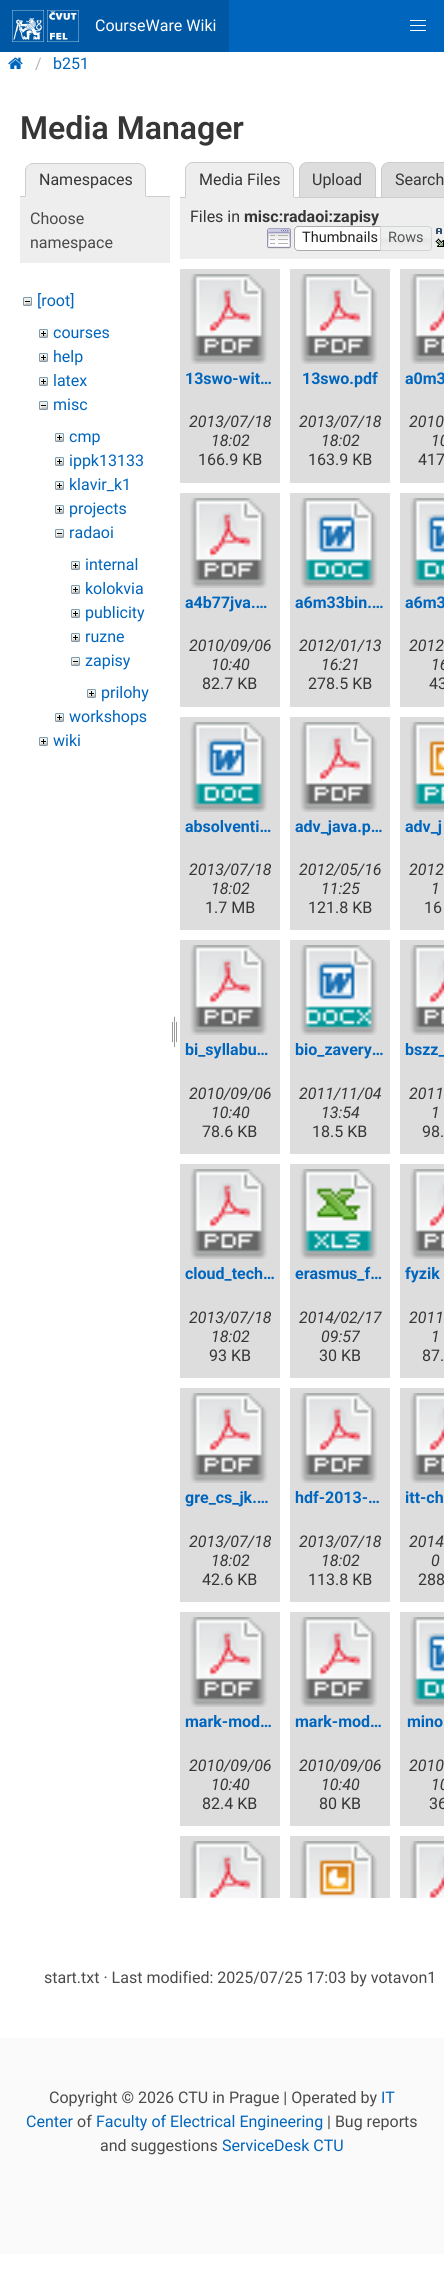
import math
import cairo


def use_color(cr, r, g, b):
  cr.set_source_rgb(r / 255, g / 255, b / 255)

def text(cr, x, y, s, family, size, color, bold=False, italic=False):
  cr.select_font_face(family, cairo.FONT_SLANT_ITALIC if italic else cairo.FONT_SLANT_NORMAL, cairo.FONT_WEIGHT_BOLD if bold else cairo.FONT_WEIGHT_NORMAL)
  cr.set_font_size(size)
  use_color(cr, *color)
  cr.move_to(x, y)
  cr.show_text(s)

def box(cr, x, y, w, h, *color):
  use_color(cr, *color)
  cr.rectangle(x, y, w, h)
  cr.fill()

def picture(cr, path, x, y, w, h):
  cr.save()
  cr.set_source_surface(cairo.ImageSurface.create_from_png(path), x, y)
  cr.rectangle(x, y, w, h)
  cr.fill()
  cr.restore()

def draw(cr):
  use_color(cr, 255, 255, 255)
  cr.paint()
  box(cr, 229, 0, 215, 52, 0, 101, 189)
  box(cr, 0, 0, 229, 52, 0, 88, 164)
  picture(cr, "img_01.png", 12, 10, 32, 32)
  picture(cr, "img_02.png", 47, 10, 32, 32)
  box(cr, 410, 20, 16, 1, 255, 255, 255)
  box(cr, 410, 25, 16, 1, 255, 255, 255)
  box(cr, 410, 30, 16, 1, 255, 255, 255)
  picture(cr, "img_03.png", 8, 57, 15, 12)
  box(cr, 20, 196, 150, 1, 204, 204, 204)
  use_color(cr, 238, 238, 238)
  cr.new_path()
  cr.move_to(33, 163)
  cr.line_to(138, 163)
  cr.curve_to(142.5, 163, 146, 166.5, 146, 171)
  cr.line_to(146, 197)
  cr.line_to(25, 197)
  cr.line_to(25, 171)
  cr.curve_to(25, 166.5, 28.5, 163, 33, 163)
  cr.close_path()
  cr.fill()
  use_color(cr, 204, 204, 204)
  cr.new_path()
  cr.move_to(33, 163)
  cr.curve_to(31, 163, 29, 164, 28, 166)
  cr.curve_to(29, 165, 31, 164, 33, 164)
  cr.line_to(138, 164)
  cr.curve_to(140, 164, 142, 165, 143, 166)
  cr.line_to(144, 166)
  cr.curve_to(142, 164, 140, 163, 138, 163)
  cr.close_path()
  cr.fill()
  cr.new_path()
  cr.move_to(146, 197)
  cr.line_to(146, 171)
  cr.curve_to(146, 169, 145, 167, 143.5, 165.5)
  cr.line_to(143, 166)
  cr.curve_to(144, 167, 145, 169, 145, 171)
  cr.line_to(145, 196)
  cr.close_path()
  cr.fill()
  use_color(cr, 238, 238, 238)
  cr.new_path()
  cr.move_to(146, 197)
  cr.line_to(145, 196)
  cr.line_to(26, 196)
  cr.line_to(25, 197)
  cr.close_path()
  cr.fill()
  use_color(cr, 204, 204, 204)
  cr.new_path()
  cr.move_to(25, 197)
  cr.line_to(26, 196)
  cr.line_to(26, 171)
  cr.curve_to(26, 169, 27, 167, 28, 166)
  cr.line_to(27.5, 165.5)
  cr.curve_to(26, 167, 25, 169, 25, 171)
  cr.close_path()
  cr.fill()
  box(cr, 20, 197, 150, 66, 238, 238, 238)
  picture(cr, "img_04.png", 23, 297, 9, 9)
  picture(cr, "img_05.png", 39, 329, 9, 9)
  picture(cr, "img_05.png", 39, 353, 9, 9)
  picture(cr, "img_05.png", 39, 377, 9, 9)
  picture(cr, "img_04.png", 39, 401, 9, 9)
  picture(cr, "img_05.png", 55, 433, 9, 9)
  picture(cr, "img_05.png", 55, 457, 9, 9)
  picture(cr, "img_05.png", 55, 481, 9, 9)
  picture(cr, "img_05.png", 55, 505, 9, 9)
  picture(cr, "img_04.png", 55, 529, 9, 9)
  picture(cr, "img_05.png", 71, 561, 9, 9)
  picture(cr, "img_05.png", 71, 585, 9, 9)
  picture(cr, "img_05.png", 71, 609, 9, 9)
  picture(cr, "img_05.png", 71, 633, 9, 9)
  picture(cr, "img_04.png", 71, 657, 9, 9)
  picture(cr, "img_05.png", 87, 689, 9, 9)
  picture(cr, "img_05.png", 55, 713, 9, 9)
  picture(cr, "img_05.png", 39, 737, 9, 9)
  picture(cr, "img_06.png", 172, 1016, 5, 31)
  use_color(cr, 221, 221, 221)
  cr.new_path()
  cr.move_to(307, 162.5)
  cr.line_to(368, 162.5)
  cr.curve_to(372, 162.5, 375.5, 166, 375.5, 170)
  cr.line_to(375.5, 197.5)
  cr.line_to(299.5, 197.5)
  cr.line_to(299.5, 170)
  cr.curve_to(299.5, 166, 303, 162.5, 307, 162.5)
  cr.close_path()
  cr.fill_preserve()
  use_color(cr, 204, 204, 204)
  cr.set_line_width(1)
  cr.stroke()
  box(cr, 180, 197, 201, 1, 204, 204, 204)
  use_color(cr, 238, 238, 238)
  cr.new_path()
  cr.move_to(193, 162)
  cr.line_to(286, 162)
  cr.curve_to(290.5, 162, 294, 165.5, 294, 170)
  cr.line_to(294, 198)
  cr.line_to(185, 198)
  cr.line_to(185, 170)
  cr.curve_to(185, 165.5, 188.5, 162, 193, 162)
  cr.close_path()
  cr.fill()
  use_color(cr, 204, 204, 204)
  cr.new_path()
  cr.move_to(193, 162)
  cr.curve_to(191, 162, 189, 163, 188, 164)
  cr.line_to(188, 165)
  cr.curve_to(189, 164, 191, 163, 193, 163)
  cr.line_to(286, 163)
  cr.curve_to(288, 163, 290, 164, 291, 165)
  cr.line_to(292, 164)
  cr.curve_to(290, 163, 288, 162, 286, 162)
  cr.close_path()
  cr.fill()
  cr.new_path()
  cr.move_to(294, 198)
  cr.line_to(294, 170)
  cr.curve_to(294, 168, 293, 166, 291.5, 164.5)
  cr.line_to(291, 165)
  cr.curve_to(292, 166, 293, 168, 293, 170)
  cr.line_to(293, 197)
  cr.close_path()
  cr.fill()
  use_color(cr, 238, 238, 238)
  cr.new_path()
  cr.move_to(294, 198)
  cr.line_to(293, 197)
  cr.line_to(186, 197)
  cr.line_to(185, 198)
  cr.close_path()
  cr.fill()
  use_color(cr, 204, 204, 204)
  cr.new_path()
  cr.move_to(185, 198)
  cr.line_to(186, 197)
  cr.line_to(186, 170)
  cr.curve_to(186, 168, 187, 166, 188, 165)
  cr.line_to(187.5, 164.5)
  cr.curve_to(186, 166, 185, 168, 185, 170)
  cr.close_path()
  cr.fill()
  use_color(cr, 221, 221, 221)
  cr.new_path()
  cr.move_to(389, 162.5)
  cr.line_to(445, 162.5)
  cr.curve_to(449, 162.5, 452.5, 166, 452.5, 170)
  cr.line_to(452.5, 197.5)
  cr.line_to(381.5, 197.5)
  cr.line_to(381.5, 170)
  cr.curve_to(381.5, 166, 385, 162.5, 389, 162.5)
  cr.close_path()
  cr.fill_preserve()
  use_color(cr, 204, 204, 204)
  cr.stroke()
  box(cr, 180, 198, 264, 61, 238, 238, 238)
  picture(cr, "img_07.png", 267, 228, 24, 21)
  box(cr, 294, 226, 86, 25, 255, 255, 255)
  cr.new_path()
  cr.move_to(298, 226.5)
  cr.line_to(385.5, 226.5)
  cr.line_to(385.5, 250.5)
  cr.line_to(298, 250.5)
  cr.curve_to(296, 250.5, 294.5, 249, 294.5, 247)
  cr.line_to(294.5, 230)
  cr.curve_to(294.5, 228, 296, 226.5, 298, 226.5)
  cr.close_path()
  use_color(cr, 170, 170, 170)
  cr.stroke()
  picture(cr, "img_08.png", 381, 226, 51, 25)
  cr.new_path()
  cr.move_to(380.5, 226.5)
  cr.line_to(428, 226.5)
  cr.curve_to(430, 226.5, 431.5, 228, 431.5, 230)
  cr.line_to(431.5, 247)
  cr.curve_to(431.5, 249, 430, 250.5, 428, 250.5)
  cr.line_to(380.5, 250.5)
  cr.close_path()
  use_color(cr, 211, 211, 211)
  cr.stroke()
  picture(cr, "img_09.png", 435, 228, 9, 19)
  box(cr, 180, 269, 100, 214, 221, 221, 221)
  picture(cr, "img_10.png", 190, 274, 77, 90)
  box(cr, 290, 269, 100, 214, 221, 221, 221)
  picture(cr, "img_10.png", 300, 274, 77, 90)
  box(cr, 400, 269, 44, 214, 221, 221, 221)
  picture(cr, "img_11.png", 410, 274, 34, 90)
  box(cr, 180, 493, 100, 214, 221, 221, 221)
  picture(cr, "img_10.png", 190, 498, 77, 90)
  box(cr, 290, 493, 100, 214, 221, 221, 221)
  picture(cr, "img_12.png", 300, 498, 77, 90)
  box(cr, 400, 493, 44, 214, 221, 221, 221)
  picture(cr, "img_13.png", 410, 498, 34, 90)
  box(cr, 180, 717, 100, 213, 221, 221, 221)
  picture(cr, "img_12.png", 190, 722, 77, 90)
  box(cr, 290, 717, 100, 213, 221, 221, 221)
  picture(cr, "img_10.png", 300, 722, 77, 90)
  box(cr, 400, 717, 44, 213, 221, 221, 221)
  picture(cr, "img_14.png", 410, 722, 34, 90)
  box(cr, 180, 940, 100, 214, 221, 221, 221)
  picture(cr, "img_10.png", 190, 945, 77, 90)
  box(cr, 290, 940, 100, 214, 221, 221, 221)
  picture(cr, "img_15.png", 300, 945, 77, 90)
  box(cr, 400, 940, 44, 214, 221, 221, 221)
  picture(cr, "img_11.png", 410, 945, 34, 90)
  box(cr, 180, 1164, 100, 214, 221, 221, 221)
  picture(cr, "img_10.png", 190, 1169, 77, 90)
  box(cr, 290, 1164, 100, 214, 221, 221, 221)
  picture(cr, "img_16.png", 300, 1169, 77, 90)
  box(cr, 400, 1164, 44, 214, 221, 221, 221)
  picture(cr, "img_11.png", 410, 1169, 34, 90)
  box(cr, 180, 1388, 100, 214, 221, 221, 221)
  picture(cr, "img_10.png", 190, 1393, 77, 90)
  box(cr, 290, 1388, 100, 214, 221, 221, 221)
  picture(cr, "img_10.png", 300, 1393, 77, 90)
  box(cr, 400, 1388, 44, 214, 221, 221, 221)
  picture(cr, "img_11.png", 410, 1393, 34, 90)
  box(cr, 180, 1612, 100, 214, 221, 221, 221)
  picture(cr, "img_10.png", 190, 1617, 77, 90)
  box(cr, 290, 1612, 100, 214, 221, 221, 221)
  picture(cr, "img_10.png", 300, 1617, 77, 90)
  box(cr, 400, 1612, 44, 214, 221, 221, 221)
  picture(cr, "img_13.png", 410, 1617, 34, 90)
  box(cr, 180, 1836, 100, 62, 221, 221, 221)
  picture(cr, "img_17.png", 190, 1841, 77, 57)
  box(cr, 290, 1836, 100, 62, 221, 221, 221)
  picture(cr, "img_18.png", 300, 1841, 77, 57)
  box(cr, 400, 1836, 44, 62, 221, 221, 221)
  picture(cr, "img_19.png", 410, 1841, 34, 57)
  box(cr, 0, 2038, 444, 216, 250, 250, 250)
  text(cr, 95, 31, "CourseWare Wiki", "Roboto", 16, (255, 255, 255))
  text(cr, 35, 69, "/", "Roboto", 16, (181, 181, 181))
  text(cr, 53, 69, "b251", "Roboto", 16, (0, 101, 189))
  text(cr, 20, 139, "Media Manager", "Roboto SemiBold", 32, (54, 54, 54))
  text(cr, 39, 185, "Namespaces", "Roboto", 16, (54, 54, 54))
  text(cr, 30, 224, "Choose", "Roboto", 16, (74, 74, 74))
  text(cr, 30, 248, "namespace", "Roboto", 16, (74, 74, 74))
  text(cr, 37, 306, "[root]", "Roboto", 16, (0, 101, 189))
  text(cr, 53, 338, "courses", "Roboto", 16, (0, 101, 189))
  text(cr, 53, 362, "help", "Roboto", 16, (0, 101, 189))
  text(cr, 53, 386, "latex", "Roboto", 16, (0, 101, 189))
  text(cr, 53, 410, "misc", "Roboto", 16, (0, 101, 189))
  text(cr, 69, 442, "cmp", "Roboto", 16, (0, 101, 189))
  text(cr, 69, 466, "ippk13133", "Roboto", 16, (0, 101, 189))
  text(cr, 69, 490, "klavir_k1", "Roboto", 16, (0, 101, 189))
  text(cr, 69, 514, "projects", "Roboto", 16, (0, 101, 189))
  text(cr, 69, 538, "radaoi", "Roboto", 16, (0, 101, 189))
  text(cr, 85, 570, "internal", "Roboto", 16, (0, 101, 189))
  text(cr, 85, 594, "kolokvia", "Roboto", 16, (0, 101, 189))
  text(cr, 85, 618, "publicity", "Roboto", 16, (0, 101, 189))
  text(cr, 85, 642, "ruzne", "Roboto", 16, (0, 101, 189))
  text(cr, 85, 666, "zapisy", "Roboto", 16, (0, 101, 189))
  text(cr, 101, 698, "prilohy", "Roboto", 16, (0, 101, 189))
  text(cr, 69, 722, "workshops", "Roboto", 16, (0, 101, 189))
  text(cr, 53, 746, "wiki", "Roboto", 16, (0, 101, 189))
  text(cr, 199, 185, "Media Files", "Roboto", 16, (54, 54, 54))
  text(cr, 312, 185, "Upload", "Roboto", 16, (54, 54, 54))
  text(cr, 395, 185, "Search", "Roboto", 16, (54, 54, 54))
  text(cr, 190, 222, "Files in", "Roboto", 16, (54, 54, 54))
  text(cr, 244, 222, "misc:radaoi:zapisy", "Roboto", 16, (54, 54, 54), bold=True)
  text(cr, 302, 242, "Thumbnails", "Roboto", 14.5, (33, 33, 33))
  text(cr, 388, 242, "Rows", "Roboto", 14.5, (85, 85, 85))
  text(cr, 185, 384, "13swo-wit…", "Roboto", 16, (0, 101, 189), bold=True)
  text(cr, 189, 427, "2013/07/18", "Roboto", 16, (54, 54, 54), italic=True)
  text(cr, 211, 446, "18:02", "Roboto", 16, (54, 54, 54), italic=True)
  text(cr, 198, 465, "166.9 KB", "Roboto", 16, (54, 54, 54))
  text(cr, 302, 384, "13swo.pdf", "Roboto", 16, (0, 101, 189), bold=True)
  text(cr, 299, 427, "2013/07/18", "Roboto", 16, (54, 54, 54), italic=True)
  text(cr, 321, 446, "18:02", "Roboto", 16, (54, 54, 54), italic=True)
  text(cr, 308, 465, "163.9 KB", "Roboto", 16, (54, 54, 54))
  text(cr, 405, 384, "a0m3", "Roboto", 16, (0, 101, 189), bold=True)
  text(cr, 409, 427, "2010", "Roboto", 16, (54, 54, 54), italic=True)
  text(cr, 431, 446, "10", "Roboto", 16, (54, 54, 54), italic=True)
  text(cr, 418, 465, "417", "Roboto", 16, (54, 54, 54))
  text(cr, 185, 608, "a4b77jva.…", "Roboto", 16, (0, 101, 189), bold=True)
  text(cr, 189, 651, "2010/09/06", "Roboto", 16, (54, 54, 54), italic=True)
  text(cr, 211, 670, "10:40", "Roboto", 16, (54, 54, 54), italic=True)
  text(cr, 202, 689, "82.7 KB", "Roboto", 16, (54, 54, 54))
  text(cr, 295, 608, "a6m33bin.…", "Roboto", 16, (0, 101, 189), bold=True)
  text(cr, 299, 651, "2012/01/13", "Roboto", 16, (54, 54, 54), italic=True)
  text(cr, 321, 670, "16:21", "Roboto", 16, (54, 54, 54), italic=True)
  text(cr, 308, 689, "278.5 KB", "Roboto", 16, (54, 54, 54))
  text(cr, 405, 608, "a6m3", "Roboto", 16, (0, 101, 189), bold=True)
  text(cr, 409, 651, "2012", "Roboto", 16, (54, 54, 54), italic=True)
  text(cr, 431, 670, "16", "Roboto", 16, (54, 54, 54), italic=True)
  text(cr, 429, 689, "43", "Roboto", 16, (54, 54, 54))
  text(cr, 185, 832, "absolventi…", "Roboto", 16, (0, 101, 189), bold=True)
  text(cr, 189, 875, "2013/07/18", "Roboto", 16, (54, 54, 54), italic=True)
  text(cr, 211, 894, "18:02", "Roboto", 16, (54, 54, 54), italic=True)
  text(cr, 205, 913, "1.7 MB", "Roboto", 16, (54, 54, 54))
  text(cr, 295, 832, "adv_java.p…", "Roboto", 16, (0, 101, 189), bold=True)
  text(cr, 299, 875, "2012/05/16", "Roboto", 16, (54, 54, 54), italic=True)
  text(cr, 321, 894, "11:25", "Roboto", 16, (54, 54, 54), italic=True)
  text(cr, 308, 913, "121.8 KB", "Roboto", 16, (54, 54, 54))
  text(cr, 405, 832, "adv_j", "Roboto", 16, (0, 101, 189), bold=True)
  text(cr, 409, 875, "2012", "Roboto", 16, (54, 54, 54), italic=True)
  text(cr, 431, 894, "1", "Roboto", 16, (54, 54, 54), italic=True)
  text(cr, 424, 913, "16", "Roboto", 16, (54, 54, 54))
  text(cr, 185, 1055, "bi_syllabu…", "Roboto", 16, (0, 101, 189), bold=True)
  text(cr, 189, 1099, "2010/09/06", "Roboto", 16, (54, 54, 54), italic=True)
  text(cr, 211, 1118, "10:40", "Roboto", 16, (54, 54, 54), italic=True)
  text(cr, 202, 1137, "78.6 KB", "Roboto", 16, (54, 54, 54))
  text(cr, 295, 1055, "bio_zavery…", "Roboto", 16, (0, 101, 189), bold=True)
  text(cr, 299, 1099, "2011/11/04", "Roboto", 16, (54, 54, 54), italic=True)
  text(cr, 321, 1118, "13:54", "Roboto", 16, (54, 54, 54), italic=True)
  text(cr, 312, 1137, "18.5 KB", "Roboto", 16, (54, 54, 54))
  text(cr, 405, 1055, "bszz_", "Roboto", 16, (0, 101, 189), bold=True)
  text(cr, 409, 1099, "2011", "Roboto", 16, (54, 54, 54), italic=True)
  text(cr, 431, 1118, "1", "Roboto", 16, (54, 54, 54), italic=True)
  text(cr, 422, 1137, "98.", "Roboto", 16, (54, 54, 54))
  text(cr, 185, 1279, "cloud_tech…", "Roboto", 16, (0, 101, 189), bold=True)
  text(cr, 189, 1323, "2013/07/18", "Roboto", 16, (54, 54, 54), italic=True)
  text(cr, 211, 1342, "18:02", "Roboto", 16, (54, 54, 54), italic=True)
  text(cr, 209, 1361, "93 KB", "Roboto", 16, (54, 54, 54))
  text(cr, 295, 1279, "erasmus_f…", "Roboto", 16, (0, 101, 189), bold=True)
  text(cr, 299, 1323, "2014/02/17", "Roboto", 16, (54, 54, 54), italic=True)
  text(cr, 321, 1342, "09:57", "Roboto", 16, (54, 54, 54), italic=True)
  text(cr, 319, 1361, "30 KB", "Roboto", 16, (54, 54, 54))
  text(cr, 405, 1279, "fyzik", "Roboto", 16, (0, 101, 189), bold=True)
  text(cr, 409, 1323, "2011", "Roboto", 16, (54, 54, 54), italic=True)
  text(cr, 431, 1342, "1", "Roboto", 16, (54, 54, 54), italic=True)
  text(cr, 422, 1361, "87.", "Roboto", 16, (54, 54, 54))
  text(cr, 185, 1503, "gre_cs_jk.…", "Roboto", 16, (0, 101, 189), bold=True)
  text(cr, 189, 1547, "2013/07/18", "Roboto", 16, (54, 54, 54), italic=True)
  text(cr, 211, 1566, "18:02", "Roboto", 16, (54, 54, 54), italic=True)
  text(cr, 202, 1585, "42.6 KB", "Roboto", 16, (54, 54, 54))
  text(cr, 295, 1503, "hdf-2013-…", "Roboto", 16, (0, 101, 189), bold=True)
  text(cr, 299, 1547, "2013/07/18", "Roboto", 16, (54, 54, 54), italic=True)
  text(cr, 321, 1566, "18:02", "Roboto", 16, (54, 54, 54), italic=True)
  text(cr, 308, 1585, "113.8 KB", "Roboto", 16, (54, 54, 54))
  text(cr, 405, 1503, "itt-ch", "Roboto", 16, (0, 101, 189), bold=True)
  text(cr, 409, 1547, "2014", "Roboto", 16, (54, 54, 54), italic=True)
  text(cr, 431, 1566, "0", "Roboto", 16, (54, 54, 54), italic=True)
  text(cr, 418, 1585, "288", "Roboto", 16, (54, 54, 54))
  text(cr, 185, 1727, "mark-mod…", "Roboto", 16, (0, 101, 189), bold=True)
  text(cr, 189, 1771, "2010/09/06", "Roboto", 16, (54, 54, 54), italic=True)
  text(cr, 211, 1790, "10:40", "Roboto", 16, (54, 54, 54), italic=True)
  text(cr, 202, 1809, "82.4 KB", "Roboto", 16, (54, 54, 54))
  text(cr, 295, 1727, "mark-mod…", "Roboto", 16, (0, 101, 189), bold=True)
  text(cr, 299, 1771, "2010/09/06", "Roboto", 16, (54, 54, 54), italic=True)
  text(cr, 321, 1790, "10:40", "Roboto", 16, (54, 54, 54), italic=True)
  text(cr, 319, 1809, "80 KB", "Roboto", 16, (54, 54, 54))
  text(cr, 407, 1727, "mino", "Roboto", 16, (0, 101, 189), bold=True)
  text(cr, 409, 1771, "2010", "Roboto", 16, (54, 54, 54), italic=True)
  text(cr, 431, 1790, "10", "Roboto", 16, (54, 54, 54), italic=True)
  text(cr, 429, 1809, "36", "Roboto", 16, (54, 54, 54))
  text(cr, 44, 1983, "start.txt · Last modified: 2025/07/25 17:03 by votavon1", "Roboto", 16, (74, 74, 74))
  text(cr, 49, 2103, "Copyright © 2026 CTU in Prague | Operated by", "Roboto", 16, (74, 74, 74))
  text(cr, 381, 2103, "IT", "Roboto", 16, (0, 101, 189))
  text(cr, 26, 2127, "Center", "Roboto", 16, (0, 101, 189))
  text(cr, 77, 2127, "of", "Roboto", 16, (74, 74, 74))
  text(cr, 96, 2127, "Faculty of Electrical Engineering", "Roboto", 16, (0, 101, 189))
  text(cr, 327, 2127, "| Bug reports", "Roboto", 16, (74, 74, 74))
  text(cr, 100, 2151, "and suggestions", "Roboto", 16, (74, 74, 74))
  text(cr, 222, 2151, "ServiceDesk CTU", "Roboto", 16, (0, 101, 189))


surface = cairo.ImageSurface(cairo.FORMAT_RGB24, 444, 2278)
cr = cairo.Context(surface)
options = cairo.FontOptions()
options.set_hint_metrics(cairo.HINT_METRICS_OFF)
options.set_hint_style(cairo.HINT_STYLE_NONE)
cr.set_font_options(options)
cr.set_miter_limit(4)
draw(cr)
surface.write_to_png("out.png")
